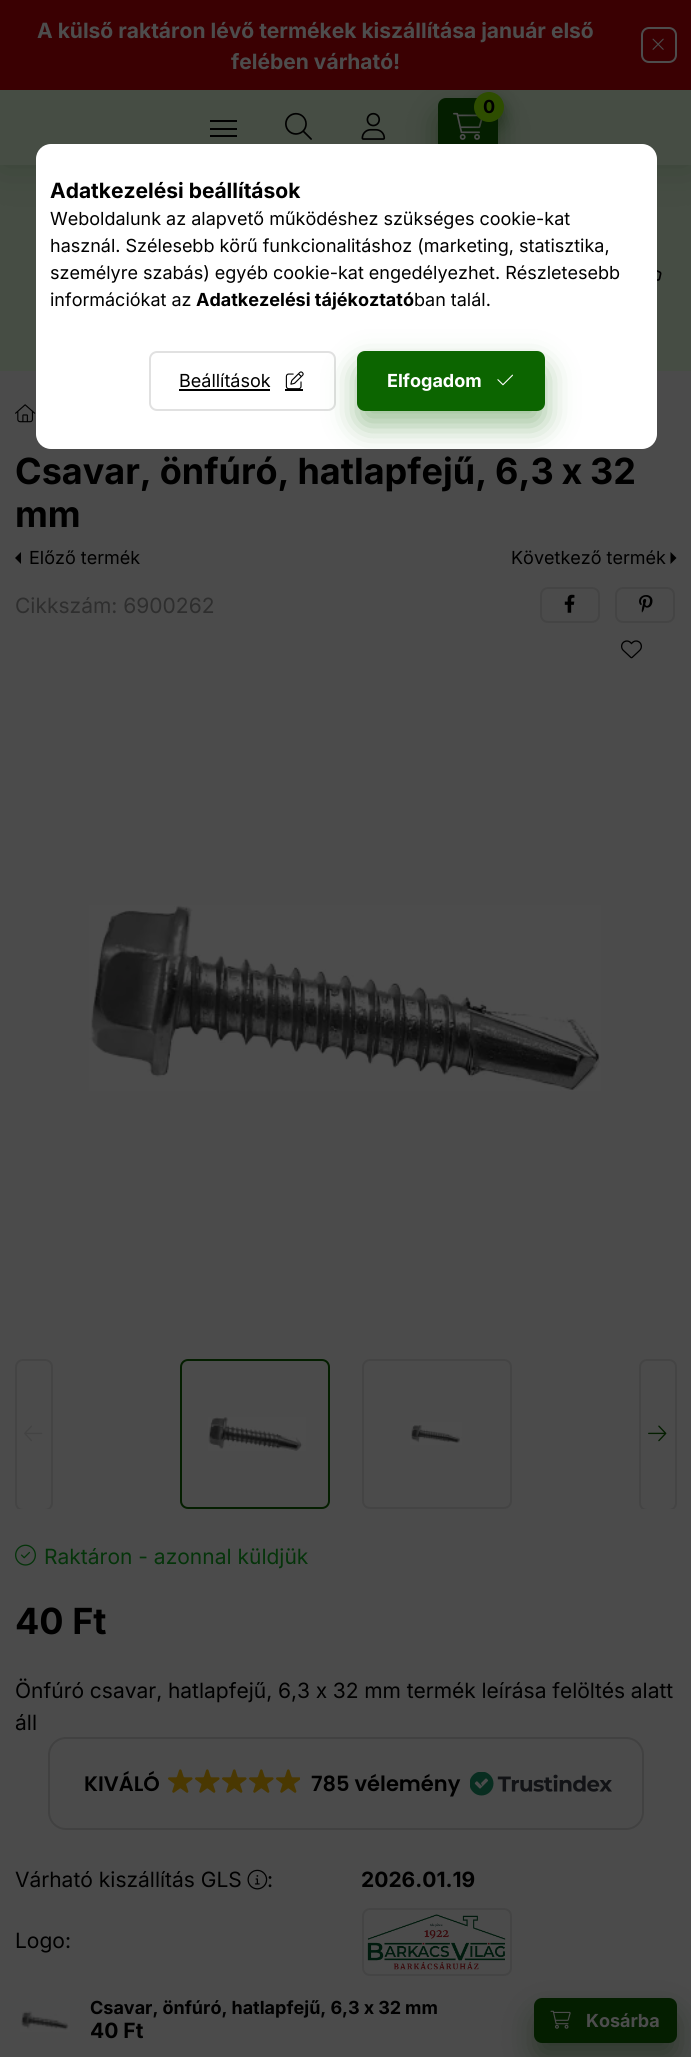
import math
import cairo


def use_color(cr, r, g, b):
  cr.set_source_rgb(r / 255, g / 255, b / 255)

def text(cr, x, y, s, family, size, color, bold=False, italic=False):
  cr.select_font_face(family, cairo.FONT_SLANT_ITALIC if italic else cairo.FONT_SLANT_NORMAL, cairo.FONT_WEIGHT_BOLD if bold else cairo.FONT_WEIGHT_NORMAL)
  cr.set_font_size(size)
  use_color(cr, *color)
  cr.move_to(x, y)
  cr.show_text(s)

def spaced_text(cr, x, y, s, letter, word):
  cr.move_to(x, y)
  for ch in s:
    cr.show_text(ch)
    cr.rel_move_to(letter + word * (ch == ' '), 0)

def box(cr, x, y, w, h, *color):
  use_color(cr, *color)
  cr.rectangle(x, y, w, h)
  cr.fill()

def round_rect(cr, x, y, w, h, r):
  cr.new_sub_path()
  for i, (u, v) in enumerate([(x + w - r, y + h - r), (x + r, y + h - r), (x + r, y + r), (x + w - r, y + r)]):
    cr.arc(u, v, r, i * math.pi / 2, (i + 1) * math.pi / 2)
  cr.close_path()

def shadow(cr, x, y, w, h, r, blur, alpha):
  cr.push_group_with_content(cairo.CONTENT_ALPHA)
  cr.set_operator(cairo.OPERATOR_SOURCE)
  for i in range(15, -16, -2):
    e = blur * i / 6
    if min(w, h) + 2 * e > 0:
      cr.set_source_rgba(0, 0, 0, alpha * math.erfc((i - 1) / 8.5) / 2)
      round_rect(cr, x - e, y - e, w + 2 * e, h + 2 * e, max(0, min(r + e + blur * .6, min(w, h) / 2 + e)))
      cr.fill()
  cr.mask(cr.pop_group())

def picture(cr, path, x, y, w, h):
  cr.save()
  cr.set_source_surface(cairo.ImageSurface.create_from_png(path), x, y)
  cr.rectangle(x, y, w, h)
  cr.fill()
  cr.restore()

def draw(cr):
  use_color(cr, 75, 75, 75)
  cr.paint()
  box(cr, 0, 165, 691, 206, 70, 77, 68)
  use_color(cr, 4, 30, 0)
  shadow(cr, 0, 90, 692, 75, 0, 22.5, 0.2)
  box(cr, 0, 90, 691, 75, 70, 77, 68)
  use_color(cr, 4, 30, 0)
  shadow(cr, 438, 113, 60, 60, 8, 15, 0.4)
  use_color(cr, 4, 30, 0)
  round_rect(cr, 438, 98, 60, 60, 8)
  cr.fill()
  picture(cr, "img_02.png", 453, 112, 30, 28)
  use_color(cr, 4, 30, 0)
  shadow(cr, 474, 99, 30, 30, 15, 7.5, 0.4)
  box(cr, 0, 0, 691, 90, 58, 0, 2)
  round_rect(cr, 642, 28, 34, 34, 7)
  use_color(cr, 77, 77, 77)
  cr.stroke()
  picture(cr, "img_01.png", 652, 38, 12, 12)
  use_color(cr, 46, 77, 0)
  cr.arc(489, 107, 15, 0, 2 * math.pi)
  cr.fill()
  box(cr, 210, 120, 27, 2, 0, 0, 0)
  box(cr, 210, 128, 27, 2, 0, 0, 0)
  box(cr, 210, 135, 27, 2, 0, 0, 0)
  picture(cr, "img_03.png", 285, 112, 27, 28)
  picture(cr, "img_04.png", 361, 112, 25, 28)
  picture(cr, "img_05.png", 657, 270, 5, 11)
  picture(cr, "img_06.png", 15, 404, 21, 19)
  cr.new_path()
  cr.move_to(21, 564)
  cr.line_to(21, 552)
  cr.line_to(15, 558)
  cr.close_path()
  cr.fill()
  cr.new_path()
  cr.move_to(670.5, 564)
  cr.line_to(670.5, 552)
  cr.line_to(676.5, 558)
  cr.close_path()
  cr.fill()
  round_rect(cr, 541, 588, 58, 34, 7)
  use_color(cr, 68, 68, 68)
  cr.stroke()
  picture(cr, "img_07.png", 564, 594, 11, 19)
  round_rect(cr, 616, 588, 58, 34, 7)
  cr.stroke()
  picture(cr, "img_08.png", 639, 595, 14, 18)
  picture(cr, "img_09.png", 621, 640, 21, 19)
  picture(cr, "img_10.png", 89, 905, 512, 186)
  cr.save()
  cr.rectangle(15, 1359, 662, 150)
  cr.clip()
  round_rect(cr, 16, 1360, 36, 150, 7)
  cr.stroke()
  cr.restore()
  picture(cr, "img_11.png", 24, 1425, 19, 17)
  round_rect(cr, 181, 1360, 148, 148, 7)
  use_color(cr, 4, 30, 0)
  cr.stroke()
  picture(cr, "img_12.png", 208, 1417, 98, 34)
  round_rect(cr, 363, 1360, 148, 148, 7)
  use_color(cr, 68, 68, 68)
  cr.stroke()
  picture(cr, "img_13.png", 410, 1422, 52, 23)
  cr.save()
  cr.rectangle(15, 1359, 662, 150)
  cr.clip()
  round_rect(cr, 640, 1360, 36, 150, 7)
  cr.stroke()
  cr.restore()
  picture(cr, "img_14.png", 648, 1425, 19, 17)
  picture(cr, "img_15.png", 15, 1544, 21, 22)
  round_rect(cr, 49, 1738, 594, 91, 17)
  use_color(cr, 65, 65, 65)
  cr.stroke()
  picture(cr, "img_16.png", 168, 1769, 25, 24)
  picture(cr, "img_16.png", 195, 1769, 25, 24)
  picture(cr, "img_16.png", 222, 1769, 25, 24)
  picture(cr, "img_16.png", 249, 1769, 25, 24)
  picture(cr, "img_17.png", 276, 1769, 24, 24)
  picture(cr, "img_18.png", 470, 1772, 142, 24)
  picture(cr, "img_19.png", 247, 1869, 21, 21)
  round_rect(cr, 363, 1909, 148, 66, 7)
  use_color(cr, 68, 68, 68)
  cr.stroke()
  picture(cr, "img_20.png", 367, 1914, 139, 56)
  picture(cr, "img_21.png", 20, 2010, 50, 22)
  use_color(cr, 4, 30, 0)
  shadow(cr, 534, 2013, 143, 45, 8, 15, 0.4)
  use_color(cr, 4, 30, 0)
  round_rect(cr, 534, 1998, 143, 45, 8)
  cr.fill()
  picture(cr, "img_22.png", 550, 2010, 21, 19)
  use_color(cr, 255, 255, 255)
  round_rect(cr, 36, 144, 621, 305, 15)
  cr.fill()
  round_rect(cr, 150, 352, 185, 58, 7)
  use_color(cr, 225, 225, 225)
  cr.stroke()
  box(cr, 179, 389, 91, 2, 0, 0, 0)
  picture(cr, "img_23.png", 285, 371, 19, 18)
  box(cr, 285, 389, 18, 2, 0, 0, 0)
  cr.save()
  round_rect(cr, 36, 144, 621, 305, 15)
  cr.clip()
  use_color(cr, 12, 101, 0)
  shadow(cr, 357, 366, 188, 60, 8, 15, 0.4)
  cr.restore()
  use_color(cr, 12, 101, 0)
  round_rect(cr, 358, 352, 186, 58, 7)
  cr.fill_preserve()
  cr.stroke()
  picture(cr, "img_24.png", 497, 374, 16, 12)
  text(cr, 37, 38, "A külső raktáron lévő termékek kiszállítása január első", "Inter", 21, (77, 77, 77), bold=True)
  text(cr, 231, 69, "felében várható!", "Inter", 21, (77, 77, 77), bold=True)
  text(cr, 483, 113, "0", "Inter", 18, (0, 0, 0), bold=True)
  cr.set_font_size(36)
  spaced_text(cr, 15, 484, "Csavar, önfúró, hatlapfejű, 6,3 x 32", 0, -0.75)
  text(cr, 15, 527, "mm", "Inter", 36, (0, 0, 0), bold=True)
  text(cr, 29, 564, "Előző termék", "Inter", 18, (0, 0, 0))
  text(cr, 511, 564, "Következő termék", "Inter", 18, (0, 0, 0))
  text(cr, 15, 613, "Cikkszám: 6900262", "Inter", 21, (46, 46, 46))
  text(cr, 44, 1564, "Raktáron - azonnal küldjük", "Inter", 21, (5, 52, 10))
  text(cr, 15, 1634, "40 Ft", "Inter", 36, (0, 0, 0), bold=True)
  cr.select_font_face("Inter")
  cr.set_font_size(21)
  spaced_text(cr, 15, 1698, "Önfúró csavar, hatlapfejű, 6,3 x 32 mm termék leírása felöltés alatt", 0, -0.25)
  text(cr, 15, 1730, "áll", "Inter", 21, (0, 0, 0))
  text(cr, 84, 1791, "KIVÁLÓ", "Poppins SemiBold", 21, (0, 0, 0))
  text(cr, 311, 1791, "785 vélemény", "Poppins SemiBold", 21, (0, 0, 0))
  text(cr, 15, 1887, "Várható kiszállítás GLS", "Inter", 21, (0, 0, 0))
  text(cr, 267, 1887, ":", "Inter", 21, (0, 0, 0))
  text(cr, 361, 1887, "2026.01.19", "Inter", 21, (0, 0, 0), bold=True)
  text(cr, 15, 1948, "Logo:", "Inter", 21, (0, 0, 0))
  cr.select_font_face("Inter", cairo.FONT_SLANT_NORMAL, cairo.FONT_WEIGHT_BOLD)
  cr.set_font_size(18)
  spaced_text(cr, 90, 2014, "Csavar, önfúró, hatlapfejű, 6,3 x 32 mm", 0, -0.25)
  text(cr, 90, 2038, "40 Ft", "Inter", 21, (0, 0, 0), bold=True)
  text(cr, 586, 2027, "Kosárba", "Inter", 18, (77, 77, 77), bold=True)
  text(cr, 50, 198, "Adatkezelési beállítások", "Inter", 21, (0, 0, 0), bold=True)
  text(cr, 50, 225, "Weboldalunk az alapvető működéshez szükséges cookie-kat", "Inter", 18, (0, 0, 0))
  text(cr, 50, 252, "használ. Szélesebb körű funkcionalitáshoz (marketing, statisztika,", "Inter", 18, (0, 0, 0))
  text(cr, 50, 279, "személyre szabás) egyéb cookie-kat engedélyezhet. Részletesebb", "Inter", 18, (0, 0, 0))
  text(cr, 50, 306, "információkat az", "Inter", 18, (0, 0, 0))
  text(cr, 196, 306, "Adatkezelési tájékoztató", "Inter", 18, (0, 0, 0), bold=True)
  text(cr, 414, 306, "ban talál.", "Inter", 18, (0, 0, 0))
  text(cr, 179, 387, "Beállítások", "Inter", 18, (0, 0, 0))
  text(cr, 387, 387, "Elfogadom", "Inter", 18, (255, 255, 255), bold=True)


surface = cairo.ImageSurface(cairo.FORMAT_RGB24, 691, 2057)
cr = cairo.Context(surface)
options = cairo.FontOptions()
options.set_hint_metrics(cairo.HINT_METRICS_OFF)
options.set_hint_style(cairo.HINT_STYLE_NONE)
cr.set_font_options(options)
cr.set_miter_limit(4)
draw(cr)
surface.write_to_png("out.png")
